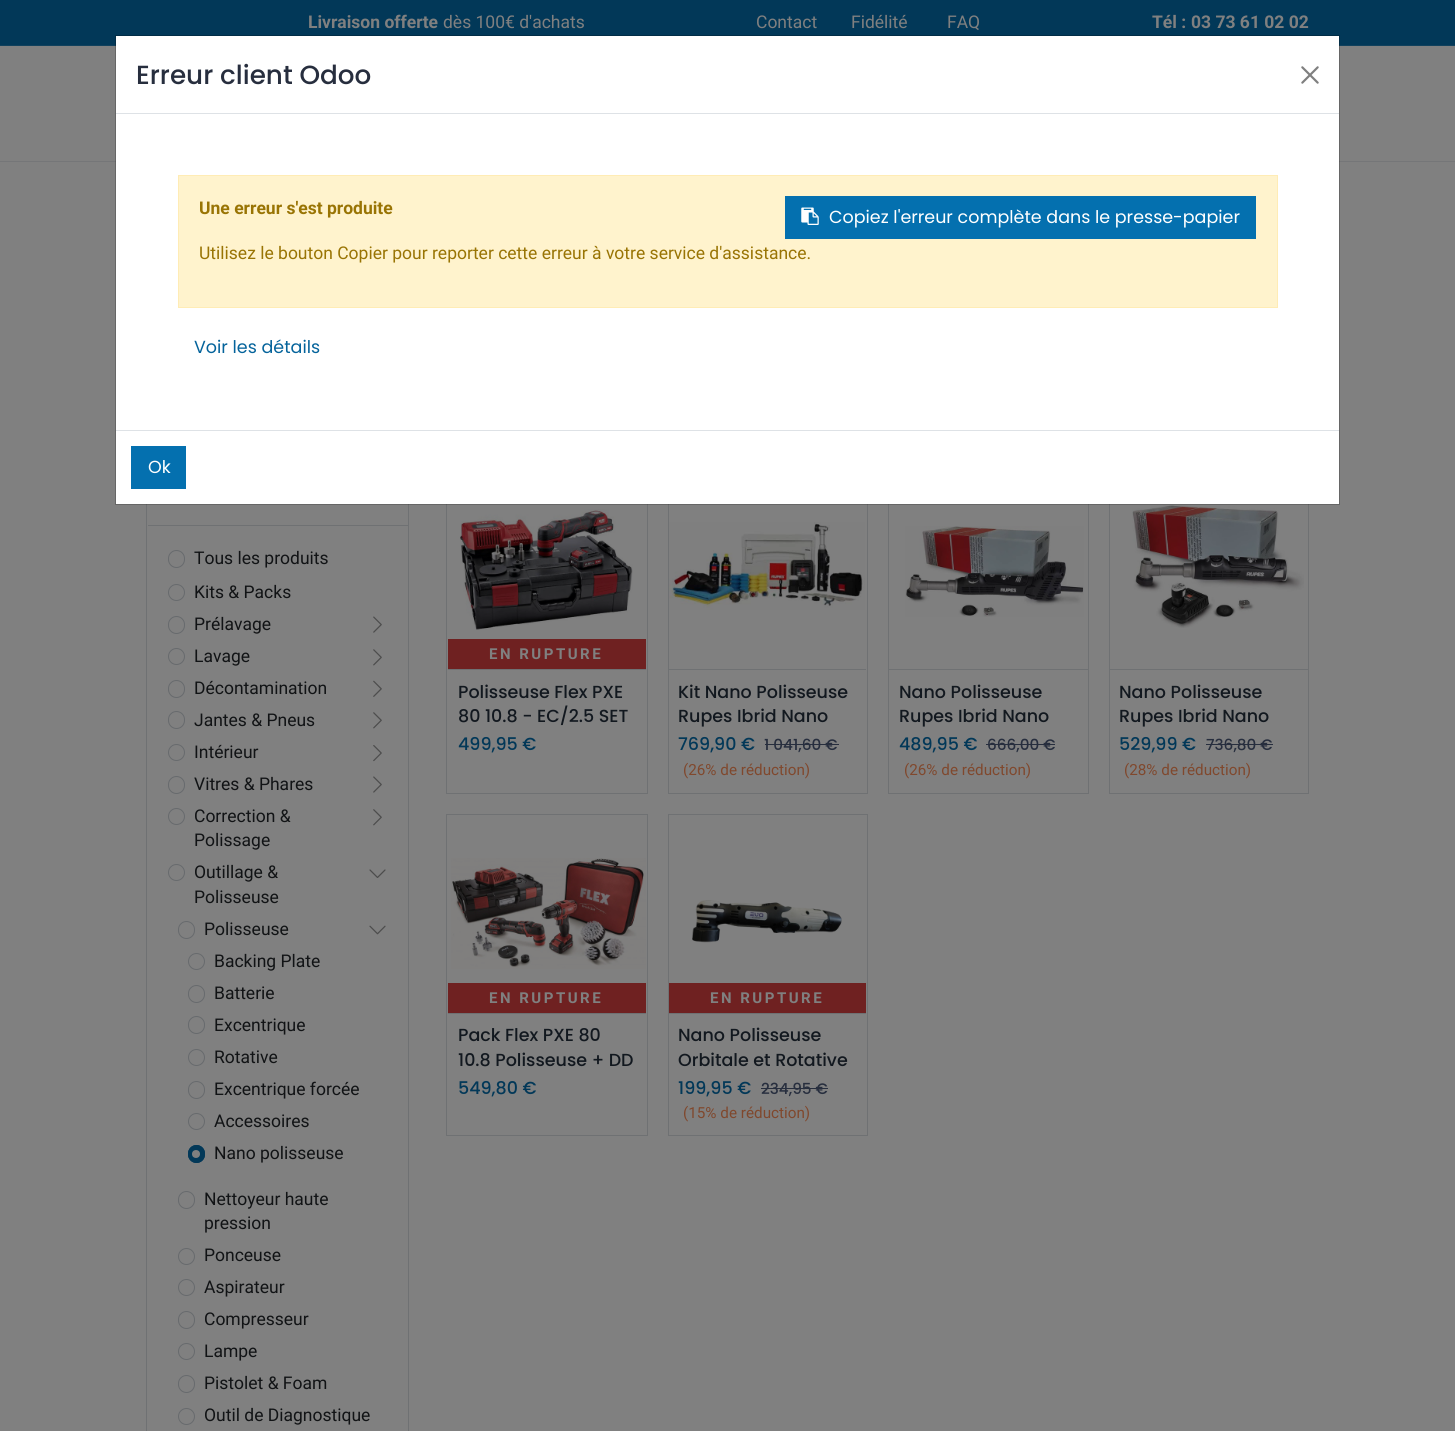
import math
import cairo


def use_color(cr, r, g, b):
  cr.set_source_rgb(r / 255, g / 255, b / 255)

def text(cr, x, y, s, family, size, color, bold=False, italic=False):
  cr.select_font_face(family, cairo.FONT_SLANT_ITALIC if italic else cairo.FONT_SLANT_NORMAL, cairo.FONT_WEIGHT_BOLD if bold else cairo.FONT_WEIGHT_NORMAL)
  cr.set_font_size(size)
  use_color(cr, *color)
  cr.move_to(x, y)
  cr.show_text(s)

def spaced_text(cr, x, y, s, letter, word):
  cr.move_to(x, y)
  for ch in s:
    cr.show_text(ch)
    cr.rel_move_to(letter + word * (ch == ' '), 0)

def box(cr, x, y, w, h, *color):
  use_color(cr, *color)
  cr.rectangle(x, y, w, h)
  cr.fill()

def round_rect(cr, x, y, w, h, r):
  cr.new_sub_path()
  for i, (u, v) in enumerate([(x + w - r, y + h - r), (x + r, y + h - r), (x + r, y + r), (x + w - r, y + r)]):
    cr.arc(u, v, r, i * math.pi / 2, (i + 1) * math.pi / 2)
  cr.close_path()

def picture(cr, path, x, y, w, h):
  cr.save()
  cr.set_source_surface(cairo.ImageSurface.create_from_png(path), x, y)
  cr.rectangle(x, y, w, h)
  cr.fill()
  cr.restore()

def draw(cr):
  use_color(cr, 128, 128, 128)
  cr.paint()
  box(cr, 0, 0, 1455, 45, 2, 56, 88)
  box(cr, 0, 45, 1455, 1, 17, 65, 93)
  box(cr, 0, 161, 1455, 1, 117, 118, 120)
  cr.rectangle(146.5, 460.5, 262, 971)
  use_color(cr, 111, 113, 115)
  cr.set_line_width(1)
  cr.stroke()
  box(cr, 148, 525, 260, 1, 111, 113, 115)
  round_rect(cr, 168.5, 550.5, 16, 17, 8)
  use_color(cr, 103, 106, 109)
  cr.stroke()
  cr.arc(176.5, 592.5, 8, 0, 2 * math.pi)
  cr.stroke()
  round_rect(cr, 168.5, 616.5, 16, 17, 8)
  cr.stroke()
  picture(cr, "img_01.png", 373, 616, 9, 17)
  cr.arc(176.5, 656.5, 8, 0, 2 * math.pi)
  cr.stroke()
  picture(cr, "img_02.png", 373, 649, 9, 17)
  round_rect(cr, 168.5, 680.5, 16, 17, 8)
  cr.stroke()
  picture(cr, "img_03.png", 373, 680, 9, 17)
  round_rect(cr, 168.5, 711.5, 16, 17, 8)
  cr.stroke()
  picture(cr, "img_04.png", 373, 712, 9, 17)
  cr.arc(176.5, 752.5, 8, 0, 2 * math.pi)
  cr.stroke()
  picture(cr, "img_05.png", 373, 745, 9, 17)
  round_rect(cr, 168.5, 776.5, 16, 17, 8)
  cr.stroke()
  picture(cr, "img_06.png", 373, 776, 9, 17)
  cr.arc(176.5, 816.5, 8, 0, 2 * math.pi)
  cr.stroke()
  picture(cr, "img_07.png", 373, 809, 9, 17)
  cr.arc(176.5, 872.5, 8, 0, 2 * math.pi)
  cr.stroke()
  picture(cr, "img_08.png", 369, 869, 17, 9)
  round_rect(cr, 178.5, 921.5, 16, 17, 8)
  cr.stroke()
  picture(cr, "img_09.png", 369, 925, 17, 10)
  cr.arc(196.5, 961.5, 8, 0, 2 * math.pi)
  cr.stroke()
  round_rect(cr, 188.5, 985.5, 16, 17, 8)
  cr.stroke()
  round_rect(cr, 188.5, 1016.5, 16, 17, 8)
  cr.stroke()
  cr.arc(196.5, 1057.5, 8, 0, 2 * math.pi)
  cr.stroke()
  round_rect(cr, 188.5, 1081.5, 16, 17, 8)
  cr.stroke()
  cr.arc(196.5, 1121.5, 8, 0, 2 * math.pi)
  cr.stroke()
  use_color(cr, 2, 56, 88)
  round_rect(cr, 188, 1145, 17, 18, 8.5)
  cr.fill()
  use_color(cr, 128, 128, 128)
  cr.arc(196, 1154, 4, 0, 2 * math.pi)
  cr.fill()
  round_rect(cr, 188.5, 1145.5, 16, 17, 8)
  use_color(cr, 2, 56, 88)
  cr.stroke()
  round_rect(cr, 178.5, 1191.5, 16, 17, 8)
  use_color(cr, 103, 106, 109)
  cr.stroke()
  cr.arc(186.5, 1256.5, 8, 0, 2 * math.pi)
  cr.stroke()
  cr.arc(186.5, 1287.5, 8, 0, 2 * math.pi)
  cr.stroke()
  round_rect(cr, 178.5, 1311.5, 16, 17, 8)
  cr.stroke()
  cr.arc(186.5, 1351.5, 8, 0, 2 * math.pi)
  cr.stroke()
  round_rect(cr, 178.5, 1375.5, 16, 17, 8)
  cr.stroke()
  cr.arc(186.5, 1416.5, 8, 0, 2 * math.pi)
  cr.stroke()
  cr.rectangle(446.5, 470.5, 201, 323)
  use_color(cr, 111, 113, 115)
  cr.stroke()
  picture(cr, "img_10.png", 460, 509, 173, 121)
  box(cr, 448, 639, 198, 30, 111, 33, 33)
  box(cr, 448, 669, 198, 1, 111, 113, 115)
  cr.rectangle(668.5, 470.5, 199, 323)
  cr.stroke()
  picture(cr, "img_11.png", 669, 522, 196, 88)
  box(cr, 669, 669, 197, 1, 111, 113, 115)
  box(cr, 765, 744, 74, 1, 39, 46, 62)
  cr.rectangle(888.5, 470.5, 200, 323)
  use_color(cr, 111, 113, 115)
  cr.stroke()
  picture(cr, "img_12.png", 905, 526, 179, 91)
  box(cr, 889, 669, 199, 1, 111, 113, 115)
  box(cr, 986, 744, 69, 1, 39, 46, 62)
  cr.rectangle(1109.5, 470.5, 199, 323)
  use_color(cr, 111, 113, 115)
  cr.stroke()
  picture(cr, "img_13.png", 1132, 505, 172, 123)
  box(cr, 1110, 669, 198, 1, 111, 113, 115)
  box(cr, 1206, 744, 67, 1, 39, 46, 62)
  cr.rectangle(446.5, 814.5, 201, 321)
  use_color(cr, 111, 113, 115)
  cr.stroke()
  picture(cr, "img_14.png", 451, 858, 195, 111)
  box(cr, 448, 983, 198, 30, 111, 33, 33)
  box(cr, 448, 1013, 198, 1, 111, 113, 115)
  cr.rectangle(668.5, 814.5, 199, 321)
  cr.stroke()
  picture(cr, "img_15.png", 692, 900, 150, 43)
  box(cr, 669, 983, 197, 30, 111, 33, 33)
  box(cr, 669, 1013, 197, 1, 111, 113, 115)
  box(cr, 761, 1088, 67, 1, 39, 46, 62)
  box(cr, 116, 36, 1223, 468, 255, 255, 255)
  cr.rectangle(115.5, 35.5, 1224, 469)
  cr.set_source_rgba(0, 0, 0, 0.2)
  cr.stroke()
  box(cr, 116, 113, 1223, 1, 222, 226, 230)
  picture(cr, "img_16.png", 1301, 66, 18, 18)
  use_color(cr, 255, 243, 205)
  cr.rectangle(178.5, 175.5, 1099, 132)
  cr.fill_preserve()
  use_color(cr, 255, 236, 181)
  cr.stroke()
  box(cr, 785, 196, 471, 43, 4, 112, 175)
  picture(cr, "img_17.png", 801, 207, 18, 18)
  box(cr, 116, 430, 1223, 1, 222, 226, 230)
  box(cr, 131, 446, 55, 43, 4, 112, 175)
  text(cr, 308, 28, "Livraison offerte", "Roboto", 17.5, (128, 128, 128), bold=True)
  text(cr, 443, 28, "dès 100€ d'achats", "Roboto", 17.5, (128, 128, 128))
  text(cr, 756, 28, "Contact", "Roboto", 17.5, (128, 128, 128))
  text(cr, 851, 28, "Fidélité", "Roboto", 17.5, (128, 128, 128))
  text(cr, 947, 28, "FAQ", "Roboto", 17.5, (128, 128, 128))
  text(cr, 1152, 28, "Tél :", "Roboto", 17.5, (128, 128, 128), bold=True)
  text(cr, 1191, 28, "03 73 61 02 02", "Roboto", 17.5, (128, 128, 128), bold=True)
  text(cr, 194, 564, "Tous les produits", "Roboto", 17.5, (17, 19, 21))
  text(cr, 194, 598, "Kits & Packs", "Roboto", 17.5, (17, 19, 21))
  text(cr, 194, 630, "Prélavage", "Roboto", 17.5, (17, 19, 21))
  text(cr, 194, 662, "Lavage", "Roboto", 17.5, (17, 19, 21))
  text(cr, 194, 694, "Décontamination", "Roboto", 17.5, (17, 19, 21))
  text(cr, 194, 726, "Jantes & Pneus", "Roboto", 17.5, (17, 19, 21))
  text(cr, 194, 758, "Intérieur", "Roboto", 17.5, (17, 19, 21))
  text(cr, 194, 790, "Vitres & Phares", "Roboto", 17.5, (17, 19, 21))
  text(cr, 194, 822, "Correction &", "Roboto", 17.5, (17, 19, 21))
  text(cr, 194, 846, "Polissage", "Roboto", 17.5, (17, 19, 21))
  text(cr, 194, 878, "Outillage &", "Roboto", 17.5, (17, 19, 21))
  text(cr, 194, 903, "Polisseuse", "Roboto", 17.5, (17, 19, 21))
  text(cr, 204, 935, "Polisseuse", "Roboto", 17.5, (17, 19, 21))
  text(cr, 214, 967, "Backing Plate", "Roboto", 17.5, (17, 19, 21))
  text(cr, 214, 999, "Batterie", "Roboto", 17.5, (17, 19, 21))
  text(cr, 214, 1031, "Excentrique", "Roboto", 17.5, (17, 19, 21))
  text(cr, 214, 1063, "Rotative", "Roboto", 17.5, (17, 19, 21))
  text(cr, 214, 1095, "Excentrique forcée", "Roboto", 17.5, (17, 19, 21))
  text(cr, 214, 1127, "Accessoires", "Roboto", 17.5, (17, 19, 21))
  text(cr, 214, 1159, "Nano polisseuse", "Roboto", 17.5, (17, 19, 21))
  text(cr, 204, 1205, "Nettoyeur haute", "Roboto", 17.5, (17, 19, 21))
  text(cr, 204, 1229, "pression", "Roboto", 17.5, (17, 19, 21))
  text(cr, 204, 1261, "Ponceuse", "Roboto", 17.5, (17, 19, 21))
  text(cr, 204, 1293, "Aspirateur", "Roboto", 17.5, (17, 19, 21))
  text(cr, 204, 1325, "Compresseur", "Roboto", 17.5, (17, 19, 21))
  text(cr, 204, 1357, "Lampe", "Roboto", 17.5, (17, 19, 21))
  text(cr, 204, 1389, "Pistolet & Foam", "Roboto", 17.5, (17, 19, 21))
  text(cr, 204, 1421, "Outil de Diagnostique", "Roboto", 17.5, (17, 19, 21))
  cr.select_font_face("Roboto", cairo.FONT_SLANT_NORMAL, cairo.FONT_WEIGHT_BOLD)
  cr.set_font_size(15)
  use_color(cr, 128, 128, 128)
  spaced_text(cr, 489, 659, "EN RUPTURE", 2.5, 0)
  text(cr, 458, 698, "Polisseuse Flex PXE", "Poppins Medium", 17.5, (18, 24, 31))
  text(cr, 458, 722, "80 10.8 - EC/2.5 SET", "Poppins Medium", 17.5, (18, 24, 31))
  text(cr, 458, 750, "499,95 €", "Poppins Medium", 17.5, (2, 56, 88))
  text(cr, 678, 698, "Kit Nano Polisseuse", "Poppins Medium", 17.5, (18, 24, 31))
  text(cr, 678, 722, "Rupes Ibrid Nano", "Poppins Medium", 17.5, (18, 24, 31))
  text(cr, 678, 750, "769,90 €", "Poppins Medium", 17.5, (2, 56, 88))
  text(cr, 764, 750, "1 041,60 €", "Poppins Medium", 15.25, (39, 46, 62))
  text(cr, 683, 775, "(26% de réduction)", "Roboto", 15.25, (128, 72, 45))
  text(cr, 899, 698, "Nano Polisseuse", "Poppins Medium", 17.5, (18, 24, 31))
  text(cr, 899, 722, "Rupes Ibrid Nano", "Poppins Medium", 17.5, (18, 24, 31))
  text(cr, 899, 750, "489,95 €", "Poppins Medium", 17.5, (2, 56, 88))
  text(cr, 987, 750, "666,00 €", "Poppins Medium", 15.25, (39, 46, 62))
  text(cr, 904, 775, "(26% de réduction)", "Roboto", 15.25, (128, 72, 45))
  text(cr, 1119, 698, "Nano Polisseuse", "Poppins Medium", 17.5, (18, 24, 31))
  text(cr, 1119, 722, "Rupes Ibrid Nano", "Poppins Medium", 17.5, (18, 24, 31))
  text(cr, 1119, 750, "529,99 €", "Poppins Medium", 17.5, (2, 56, 88))
  text(cr, 1206, 750, "736,80 €", "Poppins Medium", 15.25, (39, 46, 62))
  text(cr, 1124, 775, "(28% de réduction)", "Roboto", 15.25, (128, 72, 45))
  cr.select_font_face("Roboto", cairo.FONT_SLANT_NORMAL, cairo.FONT_WEIGHT_BOLD)
  cr.set_font_size(15)
  use_color(cr, 128, 128, 128)
  spaced_text(cr, 489, 1003, "EN RUPTURE", 2.5, 0)
  text(cr, 458, 1041, "Pack Flex PXE 80", "Poppins Medium", 17.5, (18, 24, 31))
  text(cr, 458, 1066, "10.8 Polisseuse + DD", "Poppins Medium", 17.5, (18, 24, 31))
  text(cr, 458, 1094, "549,80 €", "Poppins Medium", 17.5, (2, 56, 88))
  cr.select_font_face("Roboto", cairo.FONT_SLANT_NORMAL, cairo.FONT_WEIGHT_BOLD)
  cr.set_font_size(15)
  use_color(cr, 128, 128, 128)
  spaced_text(cr, 710, 1003, "EN RUPTURE", 2.5, 0)
  text(cr, 678, 1041, "Nano Polisseuse", "Poppins Medium", 17.5, (18, 24, 31))
  text(cr, 678, 1066, "Orbitale et Rotative", "Poppins Medium", 17.5, (18, 24, 31))
  text(cr, 678, 1094, "199,95 €", "Poppins Medium", 17.5, (2, 56, 88))
  text(cr, 761, 1094, "234,95 €", "Poppins Medium", 15.25, (39, 46, 62))
  text(cr, 683, 1118, "(15% de réduction)", "Roboto", 15.25, (128, 72, 45))
  text(cr, 136, 84, "Erreur client Odoo", "Poppins Medium", 26.25, (39, 46, 62))
  text(cr, 199, 214, "Une erreur s'est produite", "Roboto", 17.5, (153, 116, 4), bold=True)
  text(cr, 829, 223, "Copiez l'erreur complète dans le presse-papier", "Poppins", 17.5, (255, 255, 255))
  text(cr, 199, 259, "Utilisez le bouton Copier pour reporter cette erreur à votre service d'assistance.", "Roboto", 17.5, (153, 116, 4))
  text(cr, 194, 353, "Voir les détails", "Poppins", 17.5, (4, 99, 155))
  text(cr, 148, 473, "Ok", "Poppins", 17.5, (255, 255, 255))


surface = cairo.ImageSurface(cairo.FORMAT_RGB24, 1455, 1431)
cr = cairo.Context(surface)
options = cairo.FontOptions()
options.set_hint_metrics(cairo.HINT_METRICS_OFF)
options.set_hint_style(cairo.HINT_STYLE_NONE)
cr.set_font_options(options)
cr.set_miter_limit(4)
draw(cr)
surface.write_to_png("out.png")
